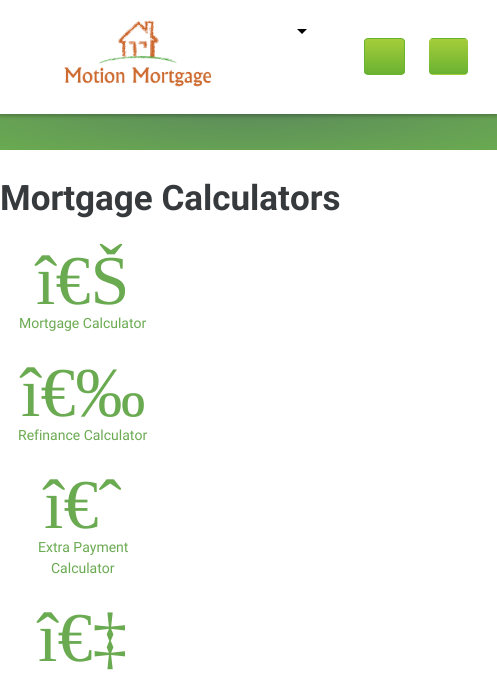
import math
import cairo


def use_color(cr, r, g, b):
  cr.set_source_rgb(r / 255, g / 255, b / 255)

def text(cr, x, y, s, family, size, color, bold=False, italic=False):
  cr.select_font_face(family, cairo.FONT_SLANT_ITALIC if italic else cairo.FONT_SLANT_NORMAL, cairo.FONT_WEIGHT_BOLD if bold else cairo.FONT_WEIGHT_NORMAL)
  cr.set_font_size(size)
  use_color(cr, *color)
  cr.move_to(x, y)
  cr.show_text(s)

def box(cr, x, y, w, h, *color):
  use_color(cr, *color)
  cr.rectangle(x, y, w, h)
  cr.fill()

def round_rect(cr, x, y, w, h, r):
  cr.new_sub_path()
  for i, (u, v) in enumerate([(x + w - r, y + h - r), (x + r, y + h - r), (x + r, y + r), (x + w - r, y + r)]):
    cr.arc(u, v, r, i * math.pi / 2, (i + 1) * math.pi / 2)
  cr.close_path()

def shadow(cr, x, y, w, h, r, blur, alpha):
  cr.push_group_with_content(cairo.CONTENT_ALPHA)
  cr.set_operator(cairo.OPERATOR_SOURCE)
  for i in range(15, -16, -2):
    e = blur * i / 6
    if min(w, h) + 2 * e > 0:
      cr.set_source_rgba(0, 0, 0, alpha * math.erfc((i - 1) / 8.5) / 2)
      round_rect(cr, x - e, y - e, w + 2 * e, h + 2 * e, max(0, min(r + e + blur * .6, min(w, h) / 2 + e)))
      cr.fill()
  cr.mask(cr.pop_group())

def picture(cr, path, x, y, w, h):
  cr.save()
  cr.set_source_surface(cairo.ImageSurface.create_from_png(path), x, y)
  cr.rectangle(x, y, w, h)
  cr.fill()
  cr.restore()

def draw(cr):
  use_color(cr, 255, 255, 255)
  cr.paint()
  gradient = cairo.RadialGradient(0, 0, 0, 0, 0, 1)
  gradient.set_matrix(cairo.Matrix(1 / 351, 0, 0, 1 / 59, -1 * 249 / 351, -1 * 108 / 59))
  gradient.add_color_stop_rgba(0, 0.357, 0.541, 0.357, 1)
  gradient.add_color_stop_rgba(1, 0.416, 0.667, 0.318, 1)
  cr.set_source(gradient)
  cr.rectangle(0, 114, 497, 36)
  cr.fill()
  use_color(cr, 0, 0, 0)
  shadow(cr, 0, 2, 497, 114, 0, 2, 0.25)
  box(cr, 0, 0, 497, 114, 255, 255, 255)
  picture(cr, "img_01.png", 64, 20, 147, 67)
  cr.save()
  round_rect(cr, 364, 38, 41, 37, 4)
  cr.clip()
  gradient = cairo.LinearGradient(385, 39, 385, 74)
  gradient.add_color_stop_rgba(0, 0.647, 0.804, 0.224, 1)
  gradient.add_color_stop_rgba(1, 0.416, 0.698, 0.196, 1)
  cr.set_source(gradient)
  cr.rectangle(364, 39, 41, 35)
  cr.fill()
  cr.restore()
  round_rect(cr, 364.5, 38.5, 40, 36, 3.5)
  use_color(cr, 106, 178, 50)
  cr.set_line_width(1)
  cr.stroke()
  cr.save()
  round_rect(cr, 429, 38, 39, 37, 4)
  cr.clip()
  gradient = cairo.LinearGradient(449, 4, 449, 39)
  gradient.add_color_stop_rgba(0, 0.647, 0.804, 0.224, 1)
  gradient.add_color_stop_rgba(1, 0.416, 0.698, 0.196, 1)
  cr.set_source(gradient)
  cr.rectangle(429, 38, 39, 1)
  cr.fill()
  gradient = cairo.LinearGradient(449, 39, 449, 74)
  gradient.add_color_stop_rgba(0, 0.647, 0.804, 0.224, 1)
  gradient.add_color_stop_rgba(1, 0.416, 0.698, 0.196, 1)
  cr.set_source(gradient)
  cr.rectangle(429, 39, 39, 35)
  cr.fill()
  gradient = cairo.LinearGradient(449, 74, 449, 109)
  gradient.add_color_stop_rgba(0, 0.647, 0.804, 0.224, 1)
  gradient.add_color_stop_rgba(1, 0.416, 0.698, 0.196, 1)
  cr.set_source(gradient)
  cr.rectangle(429, 74, 39, 1)
  cr.fill()
  cr.restore()
  use_color(cr, 0, 0, 0)
  cr.new_path()
  cr.move_to(297, 29)
  cr.line_to(307, 29)
  cr.line_to(302, 34)
  cr.close_path()
  cr.fill()
  text(cr, 0, 210, "Mortgage Calculators", "Roboto", 35, (55, 58, 60), bold=True)
  text(cr, 36, 304, "î€Š", "Liberation Serif", 70, (106, 170, 81))
  text(cr, 19, 328, "Mortgage Calculator", "Roboto", 14, (106, 170, 81))
  text(cr, 21, 416, "î€‰", "Liberation Serif", 70, (106, 170, 81))
  text(cr, 18, 440, "Refinance Calculator", "Roboto", 14, (106, 170, 81))
  text(cr, 44, 528, "î€ˆ", "Liberation Serif", 70, (106, 170, 81))
  text(cr, 38, 552, "Extra Payment", "Roboto", 14, (106, 170, 81))
  text(cr, 51, 573, "Calculator", "Roboto", 14, (106, 170, 81))
  text(cr, 38, 661, "î€‡", "Liberation Serif", 70, (106, 170, 81))


surface = cairo.ImageSurface(cairo.FORMAT_RGB24, 497, 679)
cr = cairo.Context(surface)
options = cairo.FontOptions()
options.set_hint_metrics(cairo.HINT_METRICS_OFF)
options.set_hint_style(cairo.HINT_STYLE_NONE)
cr.set_font_options(options)
cr.set_miter_limit(4)
draw(cr)
surface.write_to_png("out.png")
